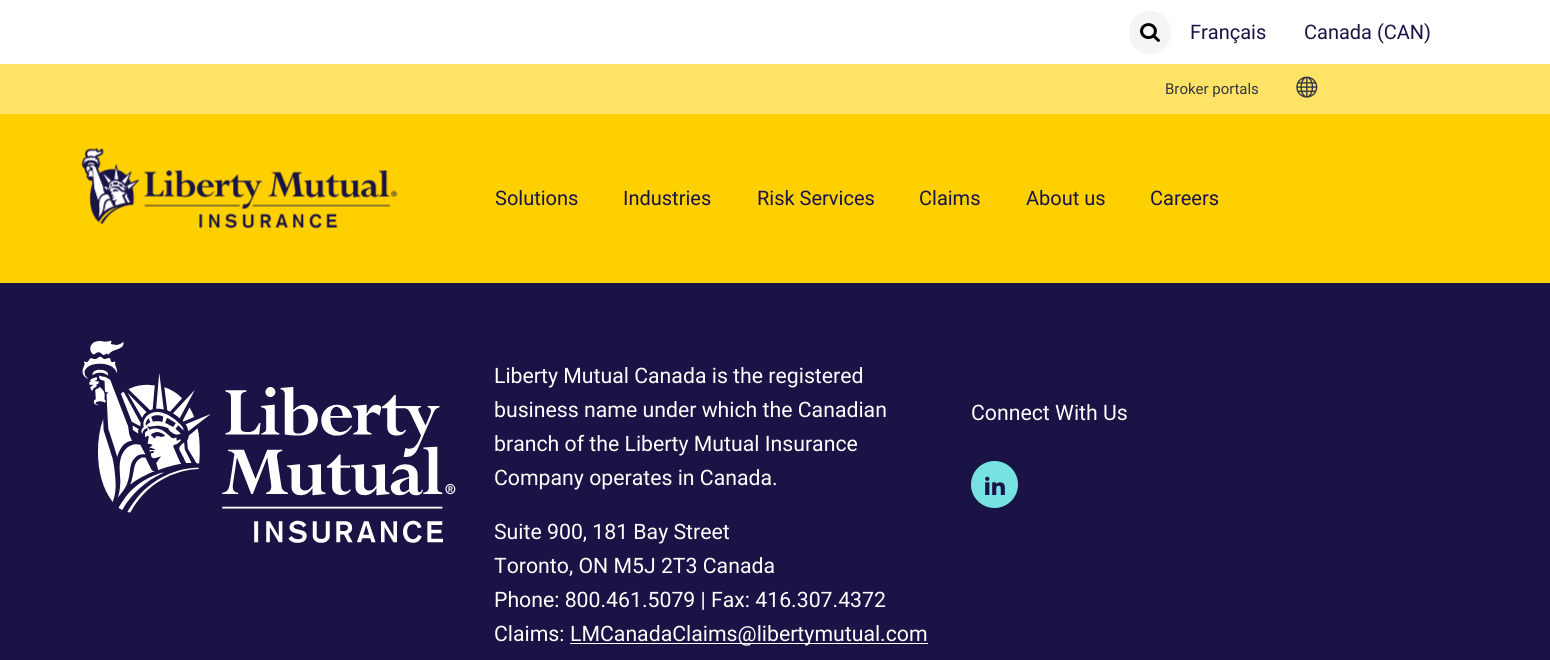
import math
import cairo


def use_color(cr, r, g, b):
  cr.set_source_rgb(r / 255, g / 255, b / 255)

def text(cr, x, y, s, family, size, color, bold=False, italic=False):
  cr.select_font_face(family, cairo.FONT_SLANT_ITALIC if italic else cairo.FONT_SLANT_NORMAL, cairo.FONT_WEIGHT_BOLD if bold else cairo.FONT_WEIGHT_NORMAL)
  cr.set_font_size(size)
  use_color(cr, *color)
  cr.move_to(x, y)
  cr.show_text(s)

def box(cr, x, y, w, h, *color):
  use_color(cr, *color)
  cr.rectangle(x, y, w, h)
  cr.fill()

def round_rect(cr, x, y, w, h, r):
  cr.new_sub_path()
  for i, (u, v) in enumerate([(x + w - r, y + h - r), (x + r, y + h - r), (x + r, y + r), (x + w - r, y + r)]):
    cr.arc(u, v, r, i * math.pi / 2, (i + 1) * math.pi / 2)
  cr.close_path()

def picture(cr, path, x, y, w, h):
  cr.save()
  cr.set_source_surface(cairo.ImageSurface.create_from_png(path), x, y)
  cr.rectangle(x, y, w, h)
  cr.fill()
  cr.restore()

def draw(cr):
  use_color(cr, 255, 255, 255)
  cr.paint()
  use_color(cr, 245, 245, 245)
  round_rect(cr, 1129, 11, 42, 43, 21)
  cr.fill()
  picture(cr, "img_01.png", 1140, 23, 20, 19)
  box(cr, 0, 64, 1550, 50, 255, 227, 102)
  picture(cr, "img_02.png", 1296, 76, 22, 22)
  box(cr, 0, 114, 1550, 169, 255, 208, 0)
  picture(cr, "img_03.png", 81, 147, 317, 82)
  box(cr, 0, 283, 1550, 377, 26, 20, 70)
  picture(cr, "img_04.png", 82, 340, 374, 203)
  box(cr, 570, 643, 358, 1, 255, 255, 255)
  use_color(cr, 120, 225, 225)
  cr.arc(994.5, 484.5, 23.5, 0, 2 * math.pi)
  cr.fill()
  picture(cr, "img_05.png", 985, 476, 20, 19)
  text(cr, 1190, 39, "Français", "Roboto", 20, (26, 20, 70))
  text(cr, 1304, 39, "Canada (CAN)", "Roboto", 20, (26, 20, 70))
  text(cr, 1165, 94, "Broker portals", "Roboto", 15, (52, 55, 65))
  text(cr, 495, 205, "Solutions", "Roboto", 20, (26, 20, 70))
  text(cr, 623, 205, "Industries", "Roboto", 20, (26, 20, 70))
  text(cr, 757, 205, "Risk Services", "Roboto", 20, (26, 20, 70))
  text(cr, 919, 205, "Claims", "Roboto", 20, (26, 20, 70))
  text(cr, 1026, 205, "About us", "Roboto", 20, (26, 20, 70))
  text(cr, 1150, 205, "Careers", "Roboto", 20, (26, 20, 70))
  text(cr, 494, 383, "Liberty Mutual Canada is the registered", "Roboto", 21.25, (255, 255, 255))
  text(cr, 494, 417, "business name under which the Canadian", "Roboto", 21.25, (255, 255, 255))
  text(cr, 494, 451, "branch of the Liberty Mutual Insurance", "Roboto", 21.25, (255, 255, 255))
  text(cr, 494, 485, "Company operates in Canada.", "Roboto", 21.25, (255, 255, 255))
  text(cr, 494, 539, "Suite 900, 181 Bay Street", "Roboto", 21.25, (255, 255, 255))
  text(cr, 494, 573, "Toronto, ON M5J 2T3 Canada", "Roboto", 21.25, (255, 255, 255))
  text(cr, 494, 607, "Phone: 800.461.5079 | Fax: 416.307.4372", "Roboto", 21.25, (255, 255, 255))
  text(cr, 494, 641, "Claims:", "Roboto", 21.25, (255, 255, 255))
  text(cr, 570, 641, "LMCanadaClaims@libertymutual.com", "Roboto", 21.25, (255, 255, 255))
  text(cr, 971, 420, "Connect With Us", "Roboto", 21.25, (255, 255, 255))


surface = cairo.ImageSurface(cairo.FORMAT_RGB24, 1550, 660)
cr = cairo.Context(surface)
options = cairo.FontOptions()
options.set_hint_metrics(cairo.HINT_METRICS_OFF)
options.set_hint_style(cairo.HINT_STYLE_NONE)
cr.set_font_options(options)
cr.set_miter_limit(4)
draw(cr)
surface.write_to_png("out.png")
